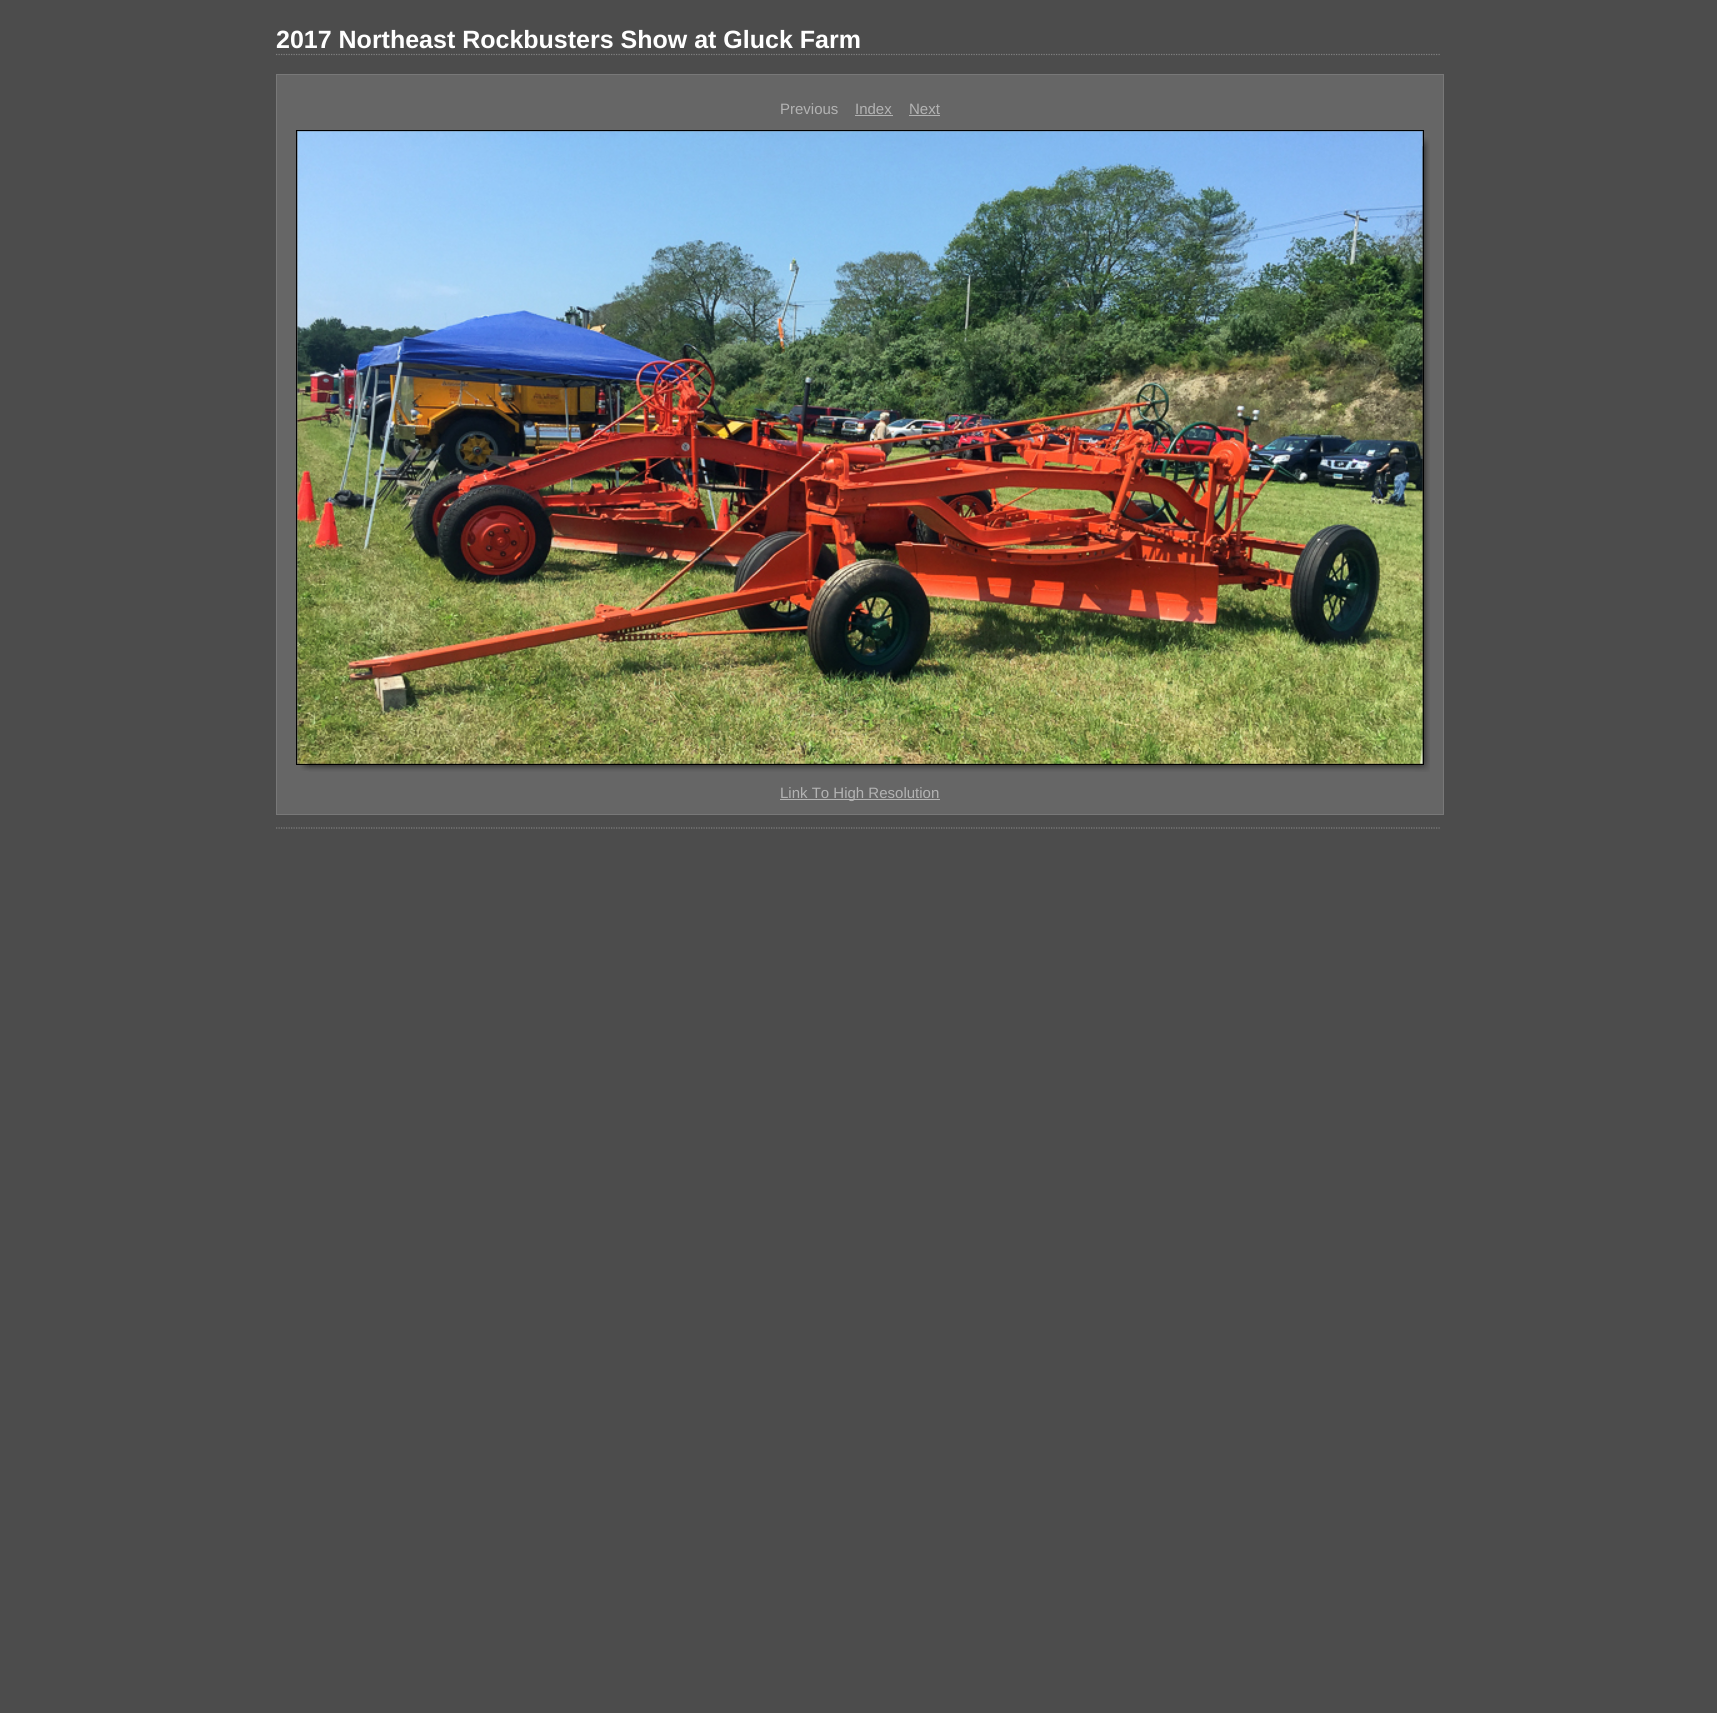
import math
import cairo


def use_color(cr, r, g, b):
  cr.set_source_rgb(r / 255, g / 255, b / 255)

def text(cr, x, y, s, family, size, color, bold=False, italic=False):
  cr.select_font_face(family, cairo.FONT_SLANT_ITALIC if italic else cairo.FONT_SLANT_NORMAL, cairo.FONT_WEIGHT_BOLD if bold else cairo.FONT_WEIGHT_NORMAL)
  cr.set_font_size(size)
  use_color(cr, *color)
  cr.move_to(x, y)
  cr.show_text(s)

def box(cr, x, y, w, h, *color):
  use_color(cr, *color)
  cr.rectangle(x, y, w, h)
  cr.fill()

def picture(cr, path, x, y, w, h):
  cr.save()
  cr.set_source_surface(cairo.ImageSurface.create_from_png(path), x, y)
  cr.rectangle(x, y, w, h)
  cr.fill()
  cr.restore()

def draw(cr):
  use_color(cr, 76, 76, 76)
  cr.paint()
  cr.new_path()
  cr.move_to(276, 54.5)
  cr.line_to(1441, 54.5)
  use_color(cr, 127, 127, 127)
  cr.set_line_width(1.2)
  cr.set_dash([1.25, 1.25])
  cr.stroke()
  cr.new_path()
  cr.move_to(276, 828)
  cr.line_to(1441, 828)
  cr.stroke()
  use_color(cr, 102, 102, 102)
  cr.rectangle(276.5, 74.5, 1167, 740)
  cr.fill_preserve()
  use_color(cr, 120, 120, 120)
  cr.set_line_width(1)
  cr.set_dash([])
  cr.stroke()
  box(cr, 855, 115, 38, 1, 179, 179, 179)
  box(cr, 909, 115, 31, 1, 179, 179, 179)
  picture(cr, "img_01.png", 308, 146, 1122, 626)
  cr.rectangle(296.5, 130.5, 1127, 634)
  use_color(cr, 0, 0, 0)
  cr.stroke()
  picture(cr, "img_02.png", 297, 131, 1126, 633)
  picture(cr, "img_03.png", 1424, 137, 6, 10)
  picture(cr, "img_04.png", 300, 765, 9, 6)
  box(cr, 780, 799, 160, 1, 179, 179, 179)
  text(cr, 276, 48, "2017 Northeast Rockbusters Show at Gluck Farm", "Liberation Sans", 25, (255, 255, 255), bold=True)
  text(cr, 780, 114, "Previous", "Liberation Sans", 15, (179, 179, 179))
  text(cr, 855, 114, "Index", "Liberation Sans", 15, (179, 179, 179))
  text(cr, 909, 114, "Next", "Liberation Sans", 15, (179, 179, 179))
  text(cr, 780, 798, "Link To High Resolution", "Liberation Sans", 15, (179, 179, 179))


surface = cairo.ImageSurface(cairo.FORMAT_RGB24, 1717, 1713)
cr = cairo.Context(surface)
options = cairo.FontOptions()
options.set_hint_metrics(cairo.HINT_METRICS_OFF)
options.set_hint_style(cairo.HINT_STYLE_NONE)
cr.set_font_options(options)
cr.set_miter_limit(4)
draw(cr)
surface.write_to_png("out.png")
